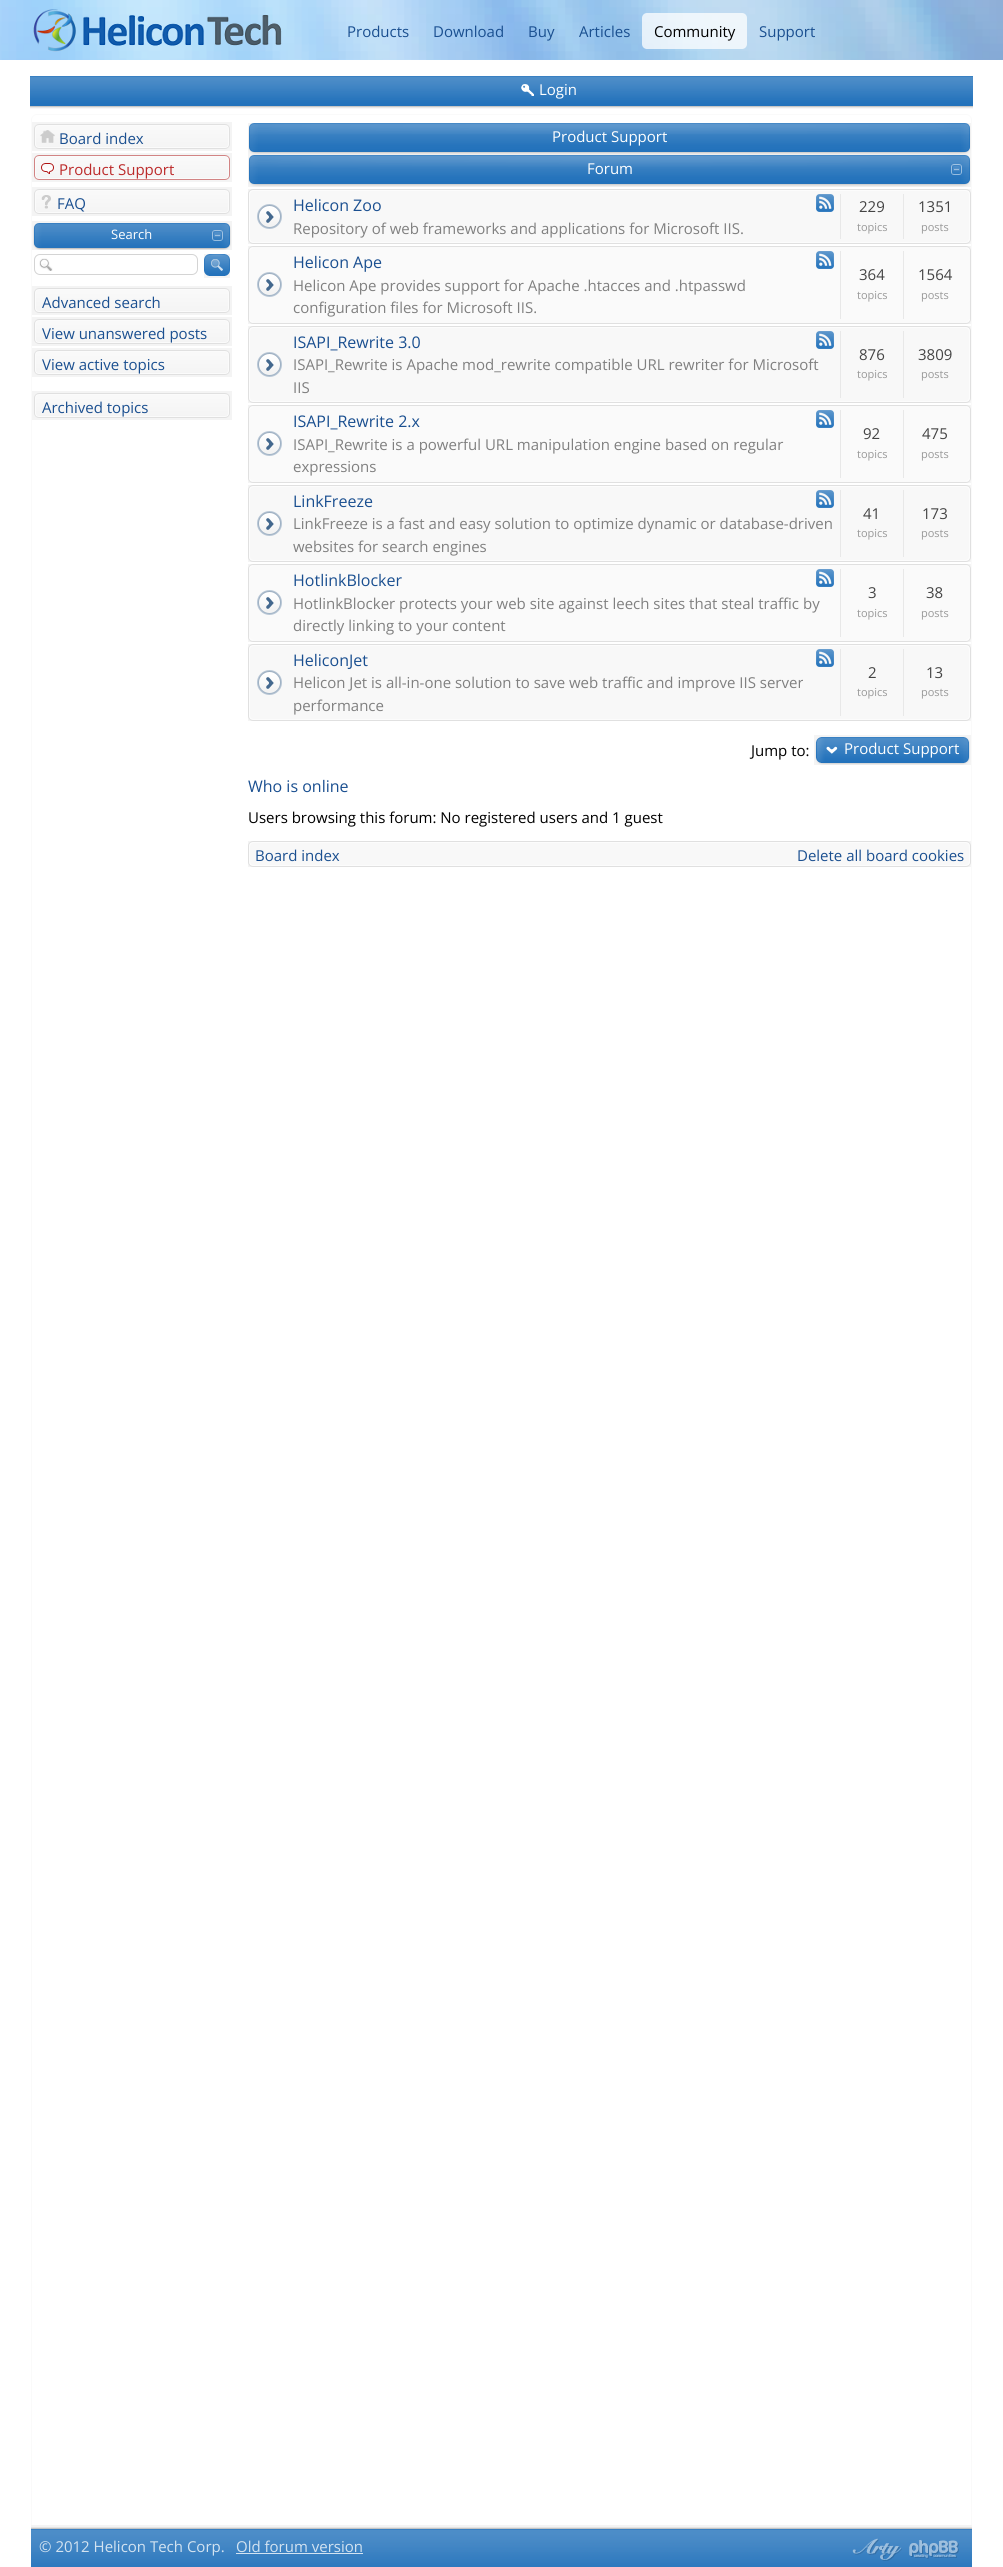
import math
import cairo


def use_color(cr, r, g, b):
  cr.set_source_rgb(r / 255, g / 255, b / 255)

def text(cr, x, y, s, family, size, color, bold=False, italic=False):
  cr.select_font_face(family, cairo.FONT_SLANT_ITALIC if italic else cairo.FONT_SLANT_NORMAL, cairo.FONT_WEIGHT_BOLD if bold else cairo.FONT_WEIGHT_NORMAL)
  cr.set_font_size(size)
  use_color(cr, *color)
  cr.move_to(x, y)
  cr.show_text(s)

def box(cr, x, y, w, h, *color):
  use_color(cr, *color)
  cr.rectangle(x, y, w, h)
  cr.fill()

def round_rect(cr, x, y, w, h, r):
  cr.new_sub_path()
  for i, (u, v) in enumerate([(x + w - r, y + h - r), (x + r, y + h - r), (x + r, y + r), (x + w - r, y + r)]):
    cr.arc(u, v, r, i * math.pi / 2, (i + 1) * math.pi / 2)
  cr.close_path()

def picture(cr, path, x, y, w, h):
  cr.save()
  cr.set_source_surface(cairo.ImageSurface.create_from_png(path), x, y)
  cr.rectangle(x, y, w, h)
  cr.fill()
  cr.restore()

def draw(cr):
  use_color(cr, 255, 255, 255)
  cr.paint()
  picture(cr, "img_01.png", 0, 0, 1003, 60)
  picture(cr, "img_02.png", 33, 9, 249, 43)
  cr.set_source_rgba(1, 1, 1, 0.75)
  round_rect(cr, 642, 13, 105, 36, 5)
  cr.fill()
  box(cr, 30, 76, 943, 30, 35, 114, 187)
  picture(cr, "img_03.png", 30, 76, 943, 33)
  picture(cr, "img_04.png", 521, 84, 13, 12)
  use_color(cr, 250, 250, 250)
  cr.set_fill_rule(cairo.FILL_RULE_EVEN_ODD)
  cr.new_path()
  cr.move_to(37, 114)
  cr.line_to(966, 114)
  cr.curve_to(969, 114, 972, 117, 972, 120)
  cr.line_to(972, 2525)
  cr.line_to(31, 2525)
  cr.line_to(31, 120)
  cr.curve_to(31, 117, 34, 114, 37, 114)
  cr.close_path()
  cr.move_to(37, 115)
  cr.line_to(966, 115)
  cr.curve_to(969, 115, 971, 117, 971, 120)
  cr.line_to(971, 2525)
  cr.line_to(32, 2525)
  cr.line_to(32, 120)
  cr.curve_to(32, 117, 34, 115, 37, 115)
  cr.close_path()
  cr.fill()
  box(cr, 34, 124, 196, 25, 204, 204, 204)
  picture(cr, "img_05.png", 32, 122, 27, 29)
  picture(cr, "img_06.png", 59, 122, 173, 29)
  box(cr, 34, 155, 196, 25, 176, 20, 20)
  picture(cr, "img_07.png", 32, 153, 27, 29)
  picture(cr, "img_08.png", 59, 153, 173, 29)
  box(cr, 34, 189, 196, 25, 204, 204, 204)
  picture(cr, "img_09.png", 32, 187, 25, 29)
  picture(cr, "img_10.png", 57, 187, 175, 29)
  box(cr, 34, 223, 196, 25, 35, 114, 187)
  picture(cr, "img_11.png", 32, 221, 10, 29)
  picture(cr, "img_12.png", 42, 221, 190, 29)
  picture(cr, "img_13.png", 212, 230, 11, 11)
  picture(cr, "img_14.png", 39, 258, 14, 13)
  round_rect(cr, 34.5, 254.5, 163, 20, 5.5)
  use_color(cr, 212, 212, 212)
  cr.set_line_width(1)
  cr.stroke()
  box(cr, 204, 254, 26, 22, 35, 114, 187)
  picture(cr, "img_15.png", 204, 254, 26, 24)
  box(cr, 34, 288, 196, 25, 204, 204, 204)
  picture(cr, "img_16.png", 32, 286, 10, 29)
  picture(cr, "img_17.png", 42, 286, 190, 29)
  box(cr, 34, 319, 196, 25, 204, 204, 204)
  picture(cr, "img_16.png", 32, 317, 10, 29)
  picture(cr, "img_17.png", 42, 317, 190, 29)
  box(cr, 34, 350, 196, 25, 204, 204, 204)
  picture(cr, "img_16.png", 32, 348, 10, 29)
  picture(cr, "img_17.png", 42, 348, 190, 29)
  box(cr, 34, 393, 196, 25, 204, 204, 204)
  picture(cr, "img_16.png", 32, 391, 10, 29)
  picture(cr, "img_17.png", 42, 391, 190, 29)
  box(cr, 249, 123, 721, 29, 35, 114, 187)
  picture(cr, "img_18.png", 249, 123, 721, 11)
  picture(cr, "img_19.png", 248, 123, 10, 32)
  picture(cr, "img_20.png", 961, 123, 10, 32)
  picture(cr, "img_21.png", 258, 123, 703, 32)
  box(cr, 249, 155, 721, 29, 35, 114, 187)
  picture(cr, "img_22.png", 248, 155, 722, 32)
  picture(cr, "img_23.png", 961, 155, 10, 32)
  picture(cr, "img_24.png", 258, 155, 703, 32)
  picture(cr, "img_25.png", 951, 164, 11, 11)
  box(cr, 249, 190, 721, 53, 248, 248, 248)
  picture(cr, "img_26.png", 253, 189, 713, 2)
  picture(cr, "img_27.png", 248, 189, 5, 5)
  picture(cr, "img_28.png", 966, 189, 5, 5)
  picture(cr, "img_29.png", 248, 194, 2, 45)
  picture(cr, "img_30.png", 969, 194, 2, 45)
  picture(cr, "img_31.png", 257, 204, 25, 25)
  picture(cr, "img_32.png", 816, 194, 18, 18)
  box(cr, 840, 194, 1, 45, 232, 232, 232)
  box(cr, 903, 194, 1, 45, 232, 232, 232)
  picture(cr, "img_33.png", 253, 242, 713, 2)
  picture(cr, "img_34.png", 248, 239, 5, 5)
  picture(cr, "img_35.png", 966, 239, 5, 5)
  box(cr, 249, 247, 721, 76, 250, 250, 250)
  box(cr, 253, 246, 713, 1, 224, 224, 224)
  picture(cr, "img_36.png", 248, 246, 5, 5)
  picture(cr, "img_37.png", 966, 246, 5, 5)
  box(cr, 248, 251, 1, 68, 224, 224, 224)
  box(cr, 970, 251, 1, 68, 224, 224, 224)
  picture(cr, "img_38.png", 257, 272, 25, 25)
  picture(cr, "img_39.png", 816, 251, 18, 18)
  box(cr, 840, 251, 1, 68, 232, 232, 232)
  box(cr, 903, 251, 1, 68, 232, 232, 232)
  box(cr, 253, 323, 713, 1, 224, 224, 224)
  picture(cr, "img_40.png", 248, 319, 5, 5)
  picture(cr, "img_41.png", 966, 319, 5, 5)
  box(cr, 249, 327, 721, 75, 248, 248, 248)
  picture(cr, "img_26.png", 253, 326, 713, 2)
  picture(cr, "img_27.png", 248, 326, 5, 5)
  picture(cr, "img_28.png", 966, 326, 5, 5)
  picture(cr, "img_42.png", 248, 331, 2, 67)
  picture(cr, "img_43.png", 969, 331, 2, 67)
  picture(cr, "img_31.png", 257, 352, 25, 25)
  picture(cr, "img_32.png", 816, 331, 18, 18)
  box(cr, 840, 331, 1, 67, 232, 232, 232)
  box(cr, 903, 331, 1, 67, 232, 232, 232)
  picture(cr, "img_33.png", 253, 401, 713, 2)
  picture(cr, "img_34.png", 248, 398, 5, 5)
  picture(cr, "img_35.png", 966, 398, 5, 5)
  box(cr, 249, 406, 721, 76, 250, 250, 250)
  box(cr, 253, 405, 713, 1, 224, 224, 224)
  picture(cr, "img_36.png", 248, 405, 5, 5)
  picture(cr, "img_37.png", 966, 405, 5, 5)
  box(cr, 248, 410, 1, 68, 224, 224, 224)
  box(cr, 970, 410, 1, 68, 224, 224, 224)
  picture(cr, "img_38.png", 257, 431, 25, 25)
  picture(cr, "img_39.png", 816, 410, 18, 18)
  box(cr, 840, 410, 1, 68, 232, 232, 232)
  box(cr, 903, 410, 1, 68, 232, 232, 232)
  box(cr, 253, 482, 713, 1, 224, 224, 224)
  picture(cr, "img_40.png", 248, 478, 5, 5)
  picture(cr, "img_41.png", 966, 478, 5, 5)
  box(cr, 249, 486, 721, 75, 248, 248, 248)
  picture(cr, "img_26.png", 253, 485, 713, 2)
  picture(cr, "img_27.png", 248, 485, 5, 5)
  picture(cr, "img_28.png", 966, 485, 5, 5)
  picture(cr, "img_42.png", 248, 490, 2, 67)
  picture(cr, "img_43.png", 969, 490, 2, 67)
  picture(cr, "img_31.png", 257, 511, 25, 25)
  picture(cr, "img_32.png", 816, 490, 18, 18)
  box(cr, 840, 490, 1, 67, 232, 232, 232)
  box(cr, 903, 490, 1, 67, 232, 232, 232)
  picture(cr, "img_33.png", 253, 560, 713, 2)
  picture(cr, "img_34.png", 248, 557, 5, 5)
  picture(cr, "img_35.png", 966, 557, 5, 5)
  box(cr, 249, 565, 721, 76, 250, 250, 250)
  box(cr, 253, 564, 713, 1, 224, 224, 224)
  picture(cr, "img_36.png", 248, 564, 5, 5)
  picture(cr, "img_37.png", 966, 564, 5, 5)
  box(cr, 248, 569, 1, 68, 224, 224, 224)
  box(cr, 970, 569, 1, 68, 224, 224, 224)
  picture(cr, "img_38.png", 257, 590, 25, 25)
  picture(cr, "img_39.png", 816, 569, 18, 18)
  box(cr, 840, 569, 1, 68, 232, 232, 232)
  box(cr, 903, 569, 1, 68, 232, 232, 232)
  box(cr, 253, 641, 713, 1, 224, 224, 224)
  picture(cr, "img_40.png", 248, 637, 5, 5)
  picture(cr, "img_41.png", 966, 637, 5, 5)
  box(cr, 249, 645, 721, 75, 248, 248, 248)
  picture(cr, "img_26.png", 253, 644, 713, 2)
  picture(cr, "img_27.png", 248, 644, 5, 5)
  picture(cr, "img_28.png", 966, 644, 5, 5)
  picture(cr, "img_42.png", 248, 649, 2, 67)
  picture(cr, "img_43.png", 969, 649, 2, 67)
  picture(cr, "img_31.png", 257, 670, 25, 25)
  picture(cr, "img_32.png", 816, 649, 18, 18)
  box(cr, 840, 649, 1, 67, 232, 232, 232)
  box(cr, 903, 649, 1, 67, 232, 232, 232)
  picture(cr, "img_33.png", 253, 719, 713, 2)
  picture(cr, "img_34.png", 248, 716, 5, 5)
  picture(cr, "img_35.png", 966, 716, 5, 5)
  box(cr, 816, 737, 154, 26, 35, 114, 187)
  picture(cr, "img_44.png", 844, 735, 127, 30)
  picture(cr, "img_45.png", 814, 735, 30, 30)
  box(cr, 249, 842, 721, 24, 248, 248, 248)
  picture(cr, "img_26.png", 253, 841, 713, 2)
  picture(cr, "img_27.png", 248, 841, 5, 5)
  picture(cr, "img_28.png", 966, 841, 5, 5)
  picture(cr, "img_46.png", 248, 846, 2, 16)
  picture(cr, "img_47.png", 969, 846, 2, 16)
  picture(cr, "img_33.png", 253, 865, 713, 2)
  picture(cr, "img_34.png", 248, 862, 5, 5)
  picture(cr, "img_35.png", 966, 862, 5, 5)
  box(cr, 31, 2529, 941, 38, 35, 114, 187)
  picture(cr, "img_48.png", 31, 2525, 941, 42)
  box(cr, 236, 2553, 127, 1, 211, 227, 241)
  picture(cr, "img_49.png", 852, 2538, 50, 23)
  picture(cr, "img_50.png", 909, 2540, 50, 19)
  text(cr, 347, 37, "Products", "Open Sans", 15, (26, 79, 144))
  text(cr, 433, 37, "Download", "Open Sans", 15, (26, 79, 144))
  text(cr, 528, 37, "Buy", "Open Sans", 15, (26, 79, 144))
  text(cr, 579, 37, "Articles", "Open Sans", 15, (26, 79, 144))
  text(cr, 654, 37, "Community", "Open Sans", 15, (0, 0, 0))
  text(cr, 759, 37, "Support", "Open Sans", 15, (26, 79, 144))
  text(cr, 539, 95, "Login", "Open Sans", 15, (255, 255, 255))
  text(cr, 59, 144, "Board index", "Open Sans", 15, (26, 79, 144))
  text(cr, 59, 175, "Product Support", "Open Sans", 15, (188, 42, 42))
  text(cr, 57, 209, "FAQ", "Open Sans", 15, (26, 79, 144))
  text(cr, 111, 239, "Search", "Open Sans", 13, (255, 255, 255))
  text(cr, 42, 308, "Advanced search", "Open Sans", 15, (26, 79, 144))
  text(cr, 42, 339, "View unanswered posts", "Open Sans", 15, (26, 79, 144))
  text(cr, 42, 370, "View active topics", "Open Sans", 15, (26, 79, 144))
  text(cr, 42, 413, "Archived topics", "Open Sans", 15, (26, 79, 144))
  text(cr, 552, 142, "Product Support", "Open Sans", 15, (255, 255, 255))
  text(cr, 587, 174, "Forum", "Open Sans", 15, (255, 255, 255))
  text(cr, 293, 211, "Helicon Zoo", "Open Sans", 16, (26, 79, 144))
  text(cr, 293, 234, "Repository of web frameworks and applications for Microsoft IIS.", "Open Sans", 15, (128, 128, 128))
  text(cr, 859, 212, "229", "Open Sans", 15, (68, 68, 68))
  text(cr, 857, 231, "topics", "Open Sans", 11, (153, 153, 153))
  text(cr, 918, 212, "1351", "Open Sans", 15, (68, 68, 68))
  text(cr, 921, 231, "posts", "Open Sans", 11, (153, 153, 153))
  text(cr, 293, 268, "Helicon Ape", "Open Sans", 16, (26, 79, 144))
  text(cr, 293, 291, "Helicon Ape provides support for Apache .htacces and .htpasswd", "Open Sans", 15, (128, 128, 128))
  text(cr, 293, 313, "configuration files for Microsoft IIS.", "Open Sans", 15, (128, 128, 128))
  text(cr, 859, 280, "364", "Open Sans", 15, (68, 68, 68))
  text(cr, 857, 299, "topics", "Open Sans", 11, (153, 153, 153))
  text(cr, 918, 280, "1564", "Open Sans", 15, (68, 68, 68))
  text(cr, 921, 299, "posts", "Open Sans", 11, (153, 153, 153))
  text(cr, 293, 348, "ISAPI_Rewrite 3.0", "Open Sans", 16, (26, 79, 144))
  text(cr, 293, 370, "ISAPI_Rewrite is Apache mod_rewrite compatible URL rewriter for Microsoft", "Open Sans", 15, (128, 128, 128))
  text(cr, 293, 393, "IIS", "Open Sans", 15, (128, 128, 128))
  text(cr, 859, 360, "876", "Open Sans", 15, (68, 68, 68))
  text(cr, 857, 378, "topics", "Open Sans", 11, (153, 153, 153))
  text(cr, 918, 360, "3809", "Open Sans", 15, (68, 68, 68))
  text(cr, 921, 378, "posts", "Open Sans", 11, (153, 153, 153))
  text(cr, 293, 427, "ISAPI_Rewrite 2.x", "Open Sans", 16, (26, 79, 144))
  text(cr, 293, 450, "ISAPI_Rewrite is a powerful URL manipulation engine based on regular", "Open Sans", 15, (128, 128, 128))
  text(cr, 293, 472, "expressions", "Open Sans", 15, (128, 128, 128))
  text(cr, 863, 439, "92", "Open Sans", 15, (68, 68, 68))
  text(cr, 857, 458, "topics", "Open Sans", 11, (153, 153, 153))
  text(cr, 922, 439, "475", "Open Sans", 15, (68, 68, 68))
  text(cr, 921, 458, "posts", "Open Sans", 11, (153, 153, 153))
  text(cr, 293, 507, "LinkFreeze", "Open Sans", 16, (26, 79, 144))
  text(cr, 293, 529, "LinkFreeze is a fast and easy solution to optimize dynamic or database-driven", "Open Sans", 15, (128, 128, 128))
  text(cr, 293, 552, "websites for search engines", "Open Sans", 15, (128, 128, 128))
  text(cr, 863, 519, "41", "Open Sans", 15, (68, 68, 68))
  text(cr, 857, 537, "topics", "Open Sans", 11, (153, 153, 153))
  text(cr, 922, 519, "173", "Open Sans", 15, (68, 68, 68))
  text(cr, 921, 537, "posts", "Open Sans", 11, (153, 153, 153))
  text(cr, 293, 586, "HotlinkBlocker", "Open Sans", 16, (26, 79, 144))
  text(cr, 293, 609, "HotlinkBlocker protects your web site against leech sites that steal traffic by", "Open Sans", 15, (128, 128, 128))
  text(cr, 293, 631, "directly linking to your content", "Open Sans", 15, (128, 128, 128))
  text(cr, 868, 598, "3", "Open Sans", 15, (68, 68, 68))
  text(cr, 857, 617, "topics", "Open Sans", 11, (153, 153, 153))
  text(cr, 926, 598, "38", "Open Sans", 15, (68, 68, 68))
  text(cr, 921, 617, "posts", "Open Sans", 11, (153, 153, 153))
  text(cr, 293, 666, "HeliconJet", "Open Sans", 16, (26, 79, 144))
  text(cr, 293, 688, "Helicon Jet is all-in-one solution to save web traffic and improve IIS server", "Open Sans", 15, (128, 128, 128))
  text(cr, 293, 711, "performance", "Open Sans", 15, (128, 128, 128))
  text(cr, 868, 678, "2", "Open Sans", 15, (68, 68, 68))
  text(cr, 857, 696, "topics", "Open Sans", 11, (153, 153, 153))
  text(cr, 926, 678, "13", "Open Sans", 15, (68, 68, 68))
  text(cr, 921, 696, "posts", "Open Sans", 11, (153, 153, 153))
  text(cr, 751, 756, "Jump to:", "Open Sans", 15, (0, 0, 0))
  text(cr, 844, 754, "Product Support", "Open Sans", 15, (255, 255, 255))
  text(cr, 248, 792, "Who is online", "Open Sans", 16, (26, 79, 144))
  text(cr, 248, 823, "Users browsing this forum: No registered users and 1 guest", "Open Sans", 15, (0, 0, 0))
  text(cr, 255, 861, "Board index", "Open Sans", 15, (26, 79, 144))
  text(cr, 797, 861, "Delete all board cookies", "Open Sans", 15, (26, 79, 144))
  text(cr, 39, 2552, "© 2012 Helicon Tech Corp.", "Open Sans", 15, (211, 227, 241))
  text(cr, 236, 2552, "Old forum version", "Open Sans", 15, (211, 227, 241))


surface = cairo.ImageSurface(cairo.FORMAT_RGB24, 1003, 2567)
cr = cairo.Context(surface)
options = cairo.FontOptions()
options.set_hint_metrics(cairo.HINT_METRICS_OFF)
options.set_hint_style(cairo.HINT_STYLE_NONE)
cr.set_font_options(options)
cr.set_miter_limit(4)
draw(cr)
surface.write_to_png("out.png")
